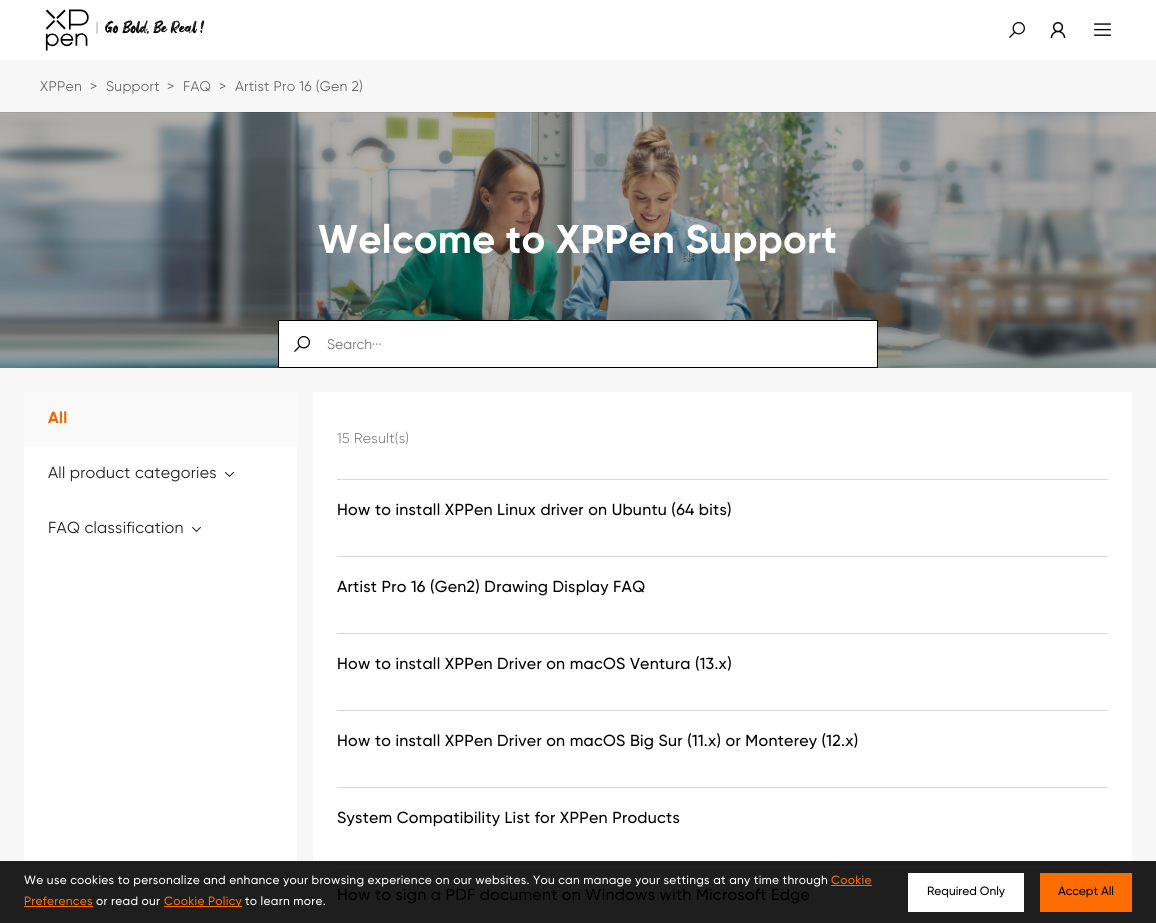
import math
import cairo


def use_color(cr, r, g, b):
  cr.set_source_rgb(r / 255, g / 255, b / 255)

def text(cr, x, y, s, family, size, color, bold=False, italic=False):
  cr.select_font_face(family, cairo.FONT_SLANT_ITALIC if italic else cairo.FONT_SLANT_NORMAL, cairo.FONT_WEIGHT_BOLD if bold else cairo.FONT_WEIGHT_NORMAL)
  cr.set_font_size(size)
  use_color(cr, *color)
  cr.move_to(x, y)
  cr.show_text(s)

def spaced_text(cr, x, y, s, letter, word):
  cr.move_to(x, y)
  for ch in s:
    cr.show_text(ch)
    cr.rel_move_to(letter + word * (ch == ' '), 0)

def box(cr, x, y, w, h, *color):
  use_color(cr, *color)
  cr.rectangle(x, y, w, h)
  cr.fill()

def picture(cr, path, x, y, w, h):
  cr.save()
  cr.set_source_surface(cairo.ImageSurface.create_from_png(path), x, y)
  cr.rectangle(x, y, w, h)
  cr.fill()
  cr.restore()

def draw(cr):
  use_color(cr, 255, 255, 255)
  cr.paint()
  picture(cr, "img_05.png", 0, 112, 1156, 256)
  cr.set_source_rgba(0, 0, 0, 0.08)
  cr.rectangle(0, 112, 1156, 1)
  cr.fill()
  picture(cr, "img_01.png", 45, 9, 160, 42)
  picture(cr, "img_02.png", 1009, 22, 16, 16)
  picture(cr, "img_03.png", 1050, 22, 16, 16)
  picture(cr, "img_04.png", 1094, 23, 17, 13)
  box(cr, 0, 60, 1156, 52, 247, 247, 247)
  box(cr, 0, 368, 1156, 493, 247, 247, 247)
  box(cr, 0, 861, 1156, 62, 30, 30, 30)
  use_color(cr, 255, 255, 255)
  cr.rectangle(278.5, 320.5, 599, 47)
  cr.fill_preserve()
  use_color(cr, 0, 0, 0)
  cr.set_line_width(1)
  cr.stroke()
  picture(cr, "img_02.png", 294, 336, 16, 16)
  box(cr, 24, 446, 273, 415, 255, 255, 255)
  box(cr, 24, 392, 273, 54, 250, 250, 250)
  picture(cr, "img_06.png", 225, 471, 9, 6)
  picture(cr, "img_06.png", 192, 526, 9, 6)
  box(cr, 313, 392, 819, 469, 255, 255, 255)
  box(cr, 337, 479, 771, 1, 217, 217, 217)
  box(cr, 337, 556, 771, 1, 217, 217, 217)
  box(cr, 337, 633, 771, 1, 217, 217, 217)
  box(cr, 337, 710, 771, 1, 217, 217, 217)
  box(cr, 337, 787, 771, 1, 217, 217, 217)
  box(cr, 337, 864, 771, 1, 26, 26, 26)
  box(cr, 831, 885, 41, 1, 255, 108, 0)
  box(cr, 24, 906, 69, 1, 255, 108, 0)
  box(cr, 164, 906, 78, 1, 255, 108, 0)
  box(cr, 908, 873, 116, 39, 255, 255, 255)
  box(cr, 1040, 873, 92, 39, 255, 108, 0)
  cr.select_font_face("Gilroy")
  cr.set_font_size(14)
  use_color(cr, 102, 102, 102)
  spaced_text(cr, 40, 91, "XPPen", 0.28, 0)
  spaced_text(cr, 90, 91, ">", 0.28, 0)
  spaced_text(cr, 106, 91, "Support", 0.28, 0)
  spaced_text(cr, 167, 91, ">", 0.28, 0)
  spaced_text(cr, 183, 91, "FAQ", 0.28, 0)
  spaced_text(cr, 219, 91, ">", 0.28, 0)
  spaced_text(cr, 235, 91, "Artist Pro 16 (Gen 2)", 0.28, 0)
  cr.select_font_face("Gilroy", cairo.FONT_SLANT_NORMAL, cairo.FONT_WEIGHT_BOLD)
  cr.set_font_size(40)
  use_color(cr, 255, 255, 255)
  spaced_text(cr, 318, 253, "Welcome to XPPen Support", 0.28, 0)
  text(cr, 327, 349, "Search···", "Gilroy", 14, (117, 117, 117))
  cr.select_font_face("Gilroy", cairo.FONT_SLANT_NORMAL, cairo.FONT_WEIGHT_BOLD)
  cr.set_font_size(16)
  use_color(cr, 244, 100, 1)
  spaced_text(cr, 48, 423, "All", 0.28, 0)
  cr.select_font_face("Gilroy")
  use_color(cr, 31, 31, 31)
  spaced_text(cr, 48, 478, "All product categories", 0.28, 0)
  spaced_text(cr, 48, 533, "FAQ classification", 0.28, 0)
  cr.select_font_face("Gilroy Light")
  cr.set_font_size(14)
  use_color(cr, 102, 102, 102)
  spaced_text(cr, 337, 443, "15 Result(s)", 0.28, 0)
  cr.select_font_face("Gilroy Medium")
  cr.set_font_size(16)
  use_color(cr, 0, 0, 0)
  spaced_text(cr, 337, 515, "How to install XPPen Linux driver on Ubuntu (64 bits)", 0.28, 0)
  spaced_text(cr, 337, 592, "Artist Pro 16 (Gen2) Drawing Display FAQ", 0.28, 0)
  spaced_text(cr, 337, 669, "How to install XPPen Driver on macOS Ventura (13.x)", 0.28, 0)
  spaced_text(cr, 337, 746, "How to install XPPen Driver on macOS Big Sur (11.x) or Monterey (12.x)", 0.28, 0)
  spaced_text(cr, 337, 823, "System Compatibility List for XPPen Products", 0.28, 0)
  spaced_text(cr, 337, 900, "How to sign a PDF document on Windows with Microsoft Edge", 0.28, 0)
  cr.set_font_size(12)
  use_color(cr, 255, 255, 255)
  spaced_text(cr, 24, 884, "We use cookies to personalize and enhance your browsing experience on our websites. You can manage your settings at any time through", 0.28, 0)
  use_color(cr, 255, 108, 0)
  spaced_text(cr, 831, 884, "Cookie", 0.28, 0)
  spaced_text(cr, 24, 905, "Preferences", 0.28, 0)
  use_color(cr, 255, 255, 255)
  spaced_text(cr, 96, 905, "or read our", 0.28, 0)
  use_color(cr, 255, 108, 0)
  spaced_text(cr, 164, 905, "Cookie Policy", 0.28, 0)
  use_color(cr, 255, 255, 255)
  spaced_text(cr, 245, 905, "to learn more.", 0.28, 0)
  text(cr, 927, 895, "Required Only", "Gilroy Medium", 12, (0, 0, 0))
  text(cr, 1058, 895, "Accept All", "Gilroy Medium", 12, (0, 0, 0))


surface = cairo.ImageSurface(cairo.FORMAT_RGB24, 1156, 923)
cr = cairo.Context(surface)
options = cairo.FontOptions()
options.set_hint_metrics(cairo.HINT_METRICS_OFF)
options.set_hint_style(cairo.HINT_STYLE_NONE)
cr.set_font_options(options)
cr.set_miter_limit(4)
draw(cr)
surface.write_to_png("out.png")
